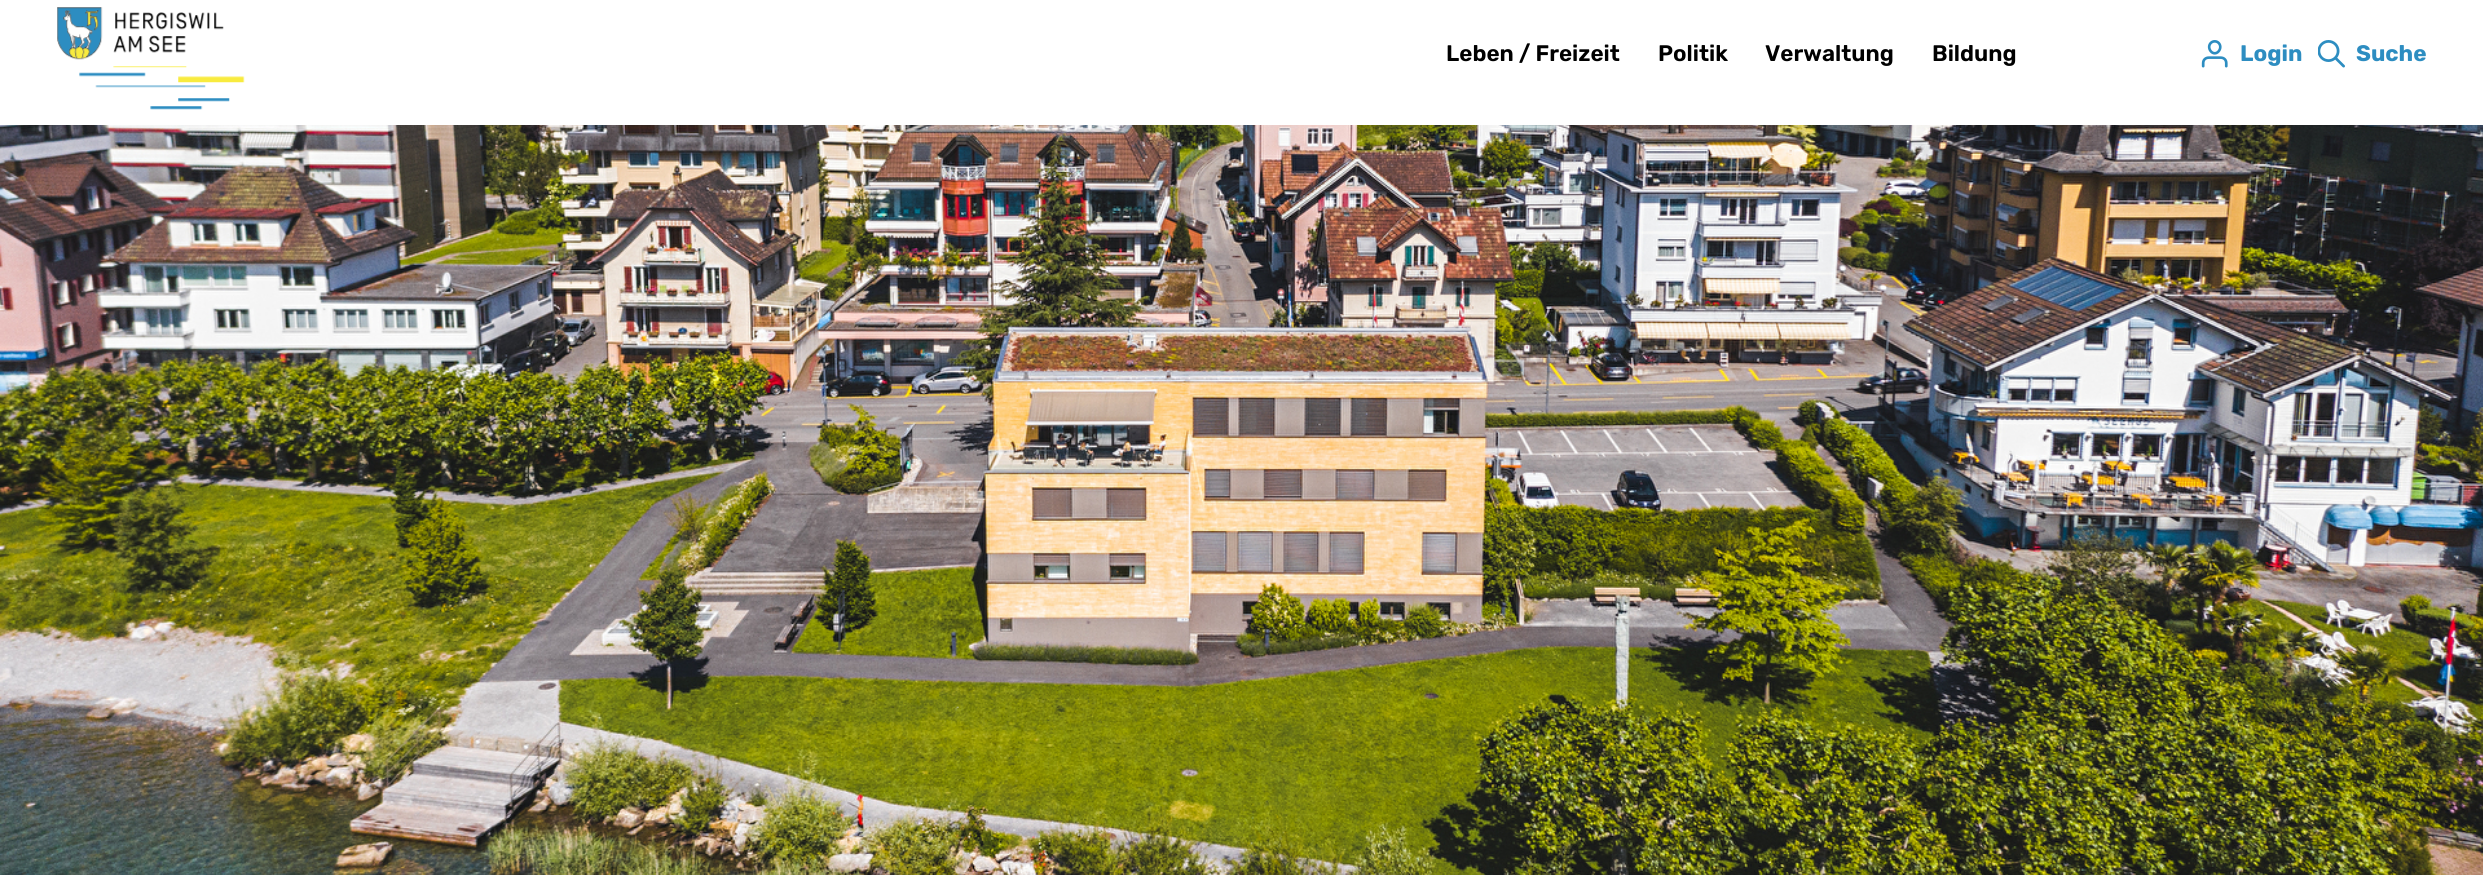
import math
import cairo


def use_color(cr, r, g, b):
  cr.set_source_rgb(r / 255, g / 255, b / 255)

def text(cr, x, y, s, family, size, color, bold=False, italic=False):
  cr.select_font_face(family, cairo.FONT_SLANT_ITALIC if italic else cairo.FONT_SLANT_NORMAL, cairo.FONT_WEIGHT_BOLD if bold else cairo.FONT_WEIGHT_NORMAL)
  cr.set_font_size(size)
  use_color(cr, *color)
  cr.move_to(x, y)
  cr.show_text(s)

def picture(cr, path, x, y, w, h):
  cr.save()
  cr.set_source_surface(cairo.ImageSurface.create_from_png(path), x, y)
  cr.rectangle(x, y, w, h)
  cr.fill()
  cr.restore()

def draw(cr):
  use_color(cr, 255, 255, 255)
  cr.paint()
  picture(cr, "img_01.png", 57, 7, 188, 103)
  picture(cr, "img_02.png", 2201, 40, 27, 28)
  picture(cr, "img_03.png", 2318, 40, 27, 28)
  picture(cr, "img_04.png", 0, 125, 2483, 750)
  text(cr, 1446, 61, "Leben / Freizeit", "Rubik SemiBold", 22.5, (0, 0, 0))
  text(cr, 1658, 61, "Politik", "Rubik SemiBold", 22.5, (0, 0, 0))
  text(cr, 1765, 61, "Verwaltung", "Rubik SemiBold", 22.5, (0, 0, 0))
  text(cr, 1932, 61, "Bildung", "Rubik SemiBold", 22.5, (0, 0, 0))
  text(cr, 2240, 61, "Login", "Rubik", 22.5, (45, 141, 193), bold=True)
  text(cr, 2356, 61, "Suche", "Rubik", 22.5, (45, 141, 193), bold=True)


surface = cairo.ImageSurface(cairo.FORMAT_RGB24, 2483, 886)
cr = cairo.Context(surface)
options = cairo.FontOptions()
options.set_hint_metrics(cairo.HINT_METRICS_OFF)
options.set_hint_style(cairo.HINT_STYLE_NONE)
cr.set_font_options(options)
cr.set_miter_limit(4)
draw(cr)
surface.write_to_png("out.png")
